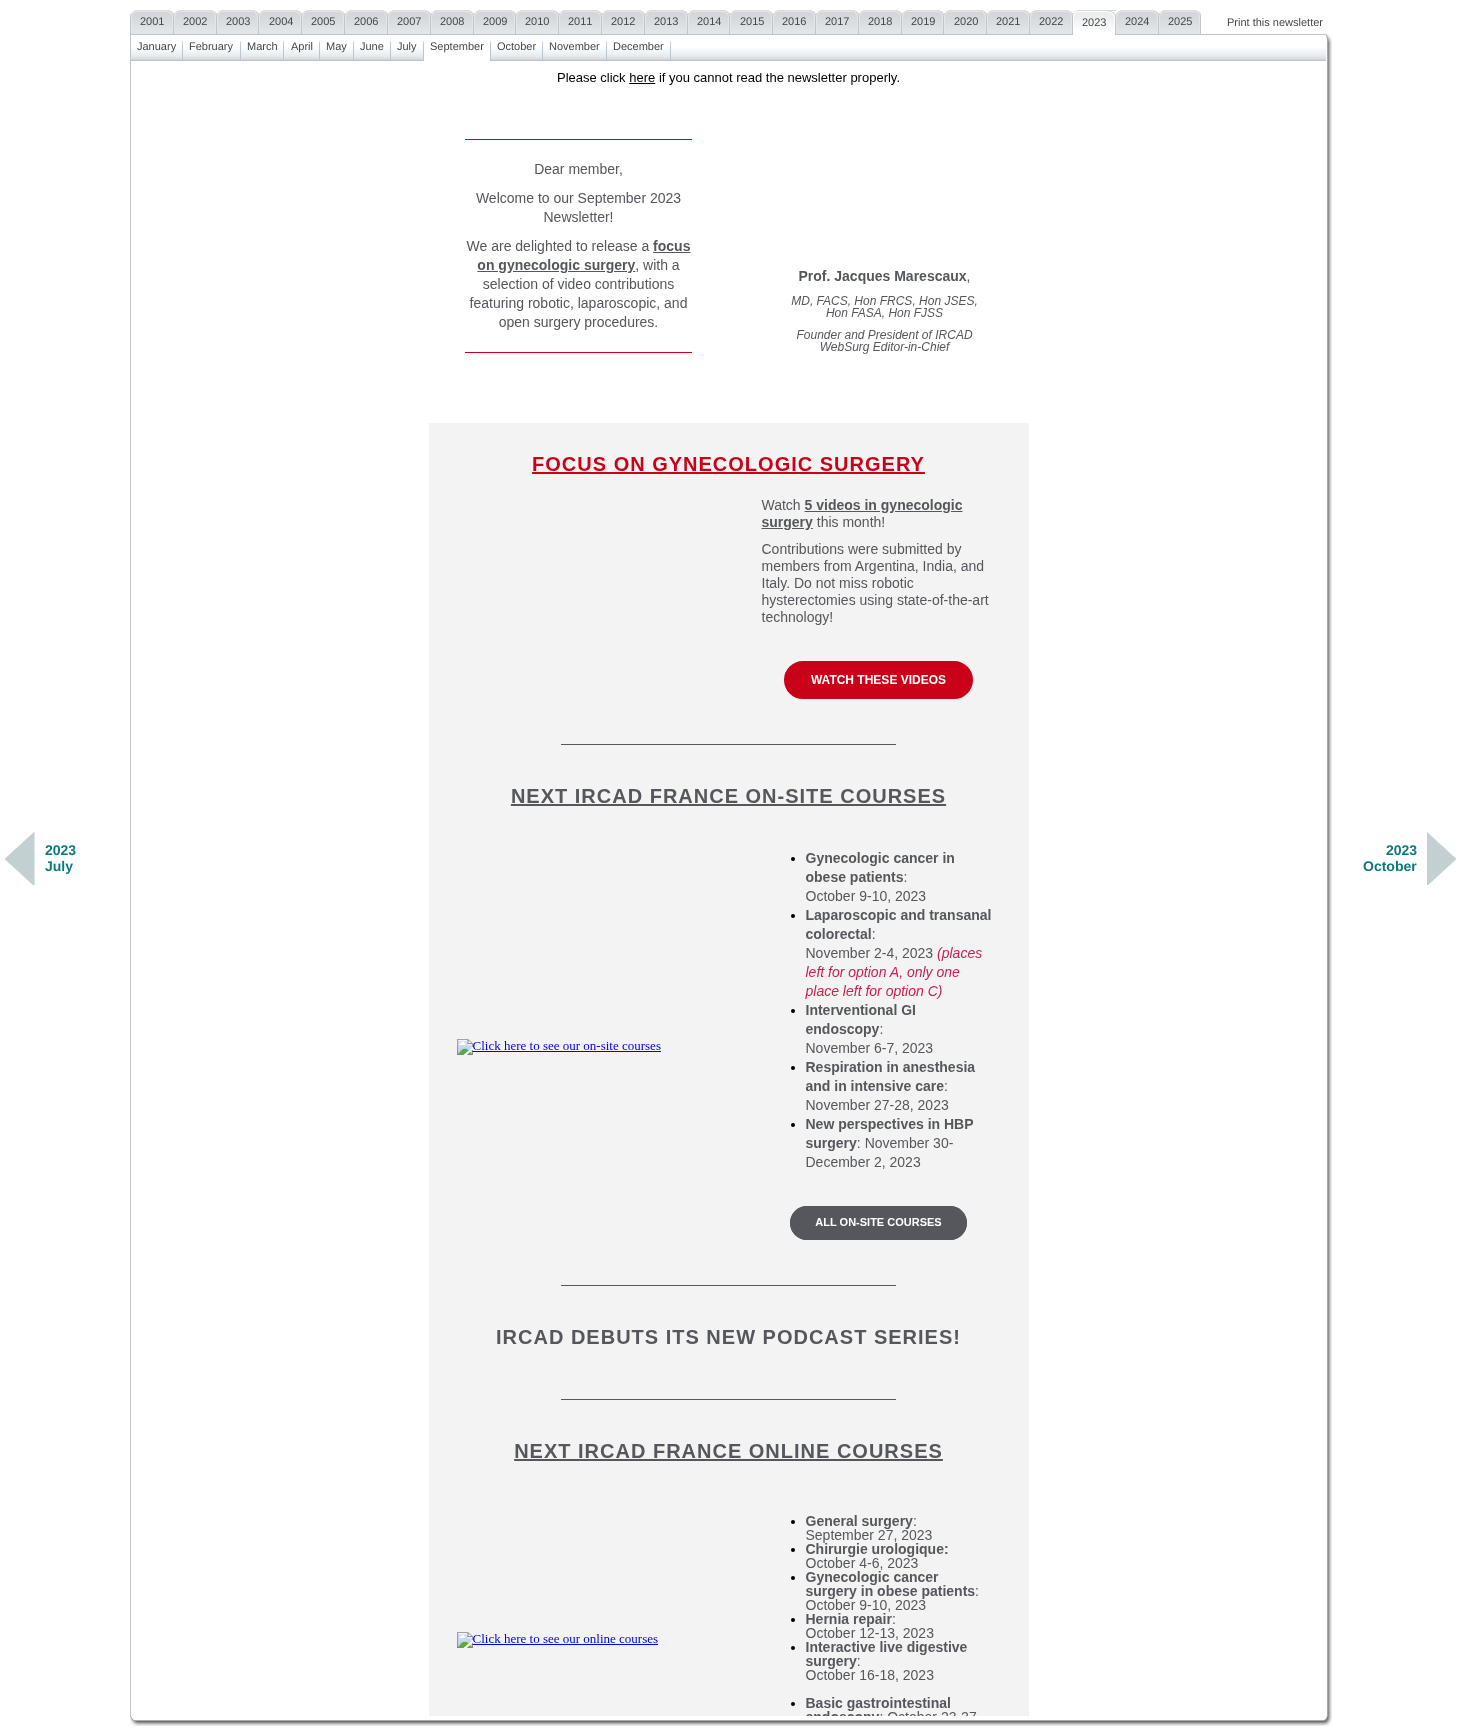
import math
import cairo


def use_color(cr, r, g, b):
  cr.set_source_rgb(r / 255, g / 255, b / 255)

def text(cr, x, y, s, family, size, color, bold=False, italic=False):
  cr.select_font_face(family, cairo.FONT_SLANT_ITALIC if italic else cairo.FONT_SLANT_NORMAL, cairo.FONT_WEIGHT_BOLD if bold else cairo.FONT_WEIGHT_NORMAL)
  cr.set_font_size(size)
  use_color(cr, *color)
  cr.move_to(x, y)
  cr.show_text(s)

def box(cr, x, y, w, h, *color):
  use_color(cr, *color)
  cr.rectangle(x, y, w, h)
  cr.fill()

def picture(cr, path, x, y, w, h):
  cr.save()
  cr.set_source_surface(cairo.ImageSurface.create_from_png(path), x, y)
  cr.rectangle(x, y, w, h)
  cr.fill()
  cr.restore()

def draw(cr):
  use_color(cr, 255, 255, 255)
  cr.paint()
  picture(cr, "img_01.png", 5, 832, 30, 53)
  box(cr, 130, 34, 943, 1, 192, 197, 202)
  picture(cr, "img_02.png", 130, 13, 1, 21)
  picture(cr, "img_03.png", 131, 10, 37, 24)
  picture(cr, "img_04.png", 168, 10, 6, 24)
  picture(cr, "img_03.png", 174, 10, 37, 24)
  picture(cr, "img_04.png", 211, 10, 6, 24)
  picture(cr, "img_05.png", 217, 10, 36, 24)
  picture(cr, "img_04.png", 253, 10, 6, 24)
  picture(cr, "img_03.png", 259, 10, 37, 24)
  picture(cr, "img_04.png", 296, 10, 6, 24)
  picture(cr, "img_03.png", 302, 10, 37, 24)
  picture(cr, "img_04.png", 339, 10, 6, 24)
  picture(cr, "img_03.png", 345, 10, 37, 24)
  picture(cr, "img_04.png", 382, 10, 6, 24)
  picture(cr, "img_03.png", 388, 10, 37, 24)
  picture(cr, "img_04.png", 425, 10, 6, 24)
  picture(cr, "img_03.png", 431, 10, 37, 24)
  picture(cr, "img_04.png", 468, 10, 6, 24)
  picture(cr, "img_05.png", 474, 10, 36, 24)
  picture(cr, "img_04.png", 510, 10, 6, 24)
  picture(cr, "img_03.png", 516, 10, 37, 24)
  picture(cr, "img_04.png", 553, 10, 6, 24)
  picture(cr, "img_03.png", 559, 10, 37, 24)
  picture(cr, "img_04.png", 596, 10, 6, 24)
  picture(cr, "img_03.png", 602, 10, 37, 24)
  picture(cr, "img_04.png", 639, 10, 6, 24)
  picture(cr, "img_03.png", 645, 10, 37, 24)
  picture(cr, "img_04.png", 682, 10, 6, 24)
  picture(cr, "img_05.png", 688, 10, 36, 24)
  picture(cr, "img_04.png", 724, 10, 6, 24)
  picture(cr, "img_03.png", 730, 10, 37, 24)
  picture(cr, "img_04.png", 767, 10, 6, 24)
  picture(cr, "img_03.png", 773, 10, 37, 24)
  picture(cr, "img_04.png", 810, 10, 6, 24)
  picture(cr, "img_03.png", 816, 10, 37, 24)
  picture(cr, "img_04.png", 853, 10, 6, 24)
  picture(cr, "img_03.png", 859, 10, 37, 24)
  picture(cr, "img_04.png", 896, 10, 6, 24)
  picture(cr, "img_05.png", 902, 10, 36, 24)
  picture(cr, "img_04.png", 938, 10, 6, 24)
  picture(cr, "img_03.png", 944, 10, 37, 24)
  picture(cr, "img_04.png", 981, 10, 6, 24)
  picture(cr, "img_03.png", 987, 10, 37, 24)
  picture(cr, "img_04.png", 1024, 10, 6, 24)
  picture(cr, "img_03.png", 1030, 10, 37, 24)
  picture(cr, "img_04.png", 1067, 10, 6, 24)
  picture(cr, "img_06.png", 1073, 10, 43, 19)
  picture(cr, "img_07.png", 1108, 11, 8, 24)
  picture(cr, "img_03.png", 1116, 10, 37, 24)
  box(cr, 1116, 34, 210, 1, 192, 197, 202)
  picture(cr, "img_04.png", 1153, 10, 6, 24)
  picture(cr, "img_05.png", 1159, 10, 36, 24)
  picture(cr, "img_04.png", 1195, 10, 6, 24)
  picture(cr, "img_08.png", 131, 48, 1195, 13)
  box(cr, 130, 35, 1, 1681, 192, 197, 202)
  picture(cr, "img_09.png", 182, 41, 1, 20)
  picture(cr, "img_09.png", 240, 41, 1, 20)
  picture(cr, "img_09.png", 283, 41, 1, 20)
  picture(cr, "img_09.png", 319, 41, 1, 20)
  picture(cr, "img_09.png", 353, 41, 1, 20)
  picture(cr, "img_09.png", 390, 41, 1, 20)
  picture(cr, "img_09.png", 423, 41, 1, 20)
  picture(cr, "img_09.png", 490, 41, 1, 20)
  box(cr, 424, 48, 66, 13, 255, 255, 255)
  picture(cr, "img_09.png", 542, 41, 1, 20)
  picture(cr, "img_09.png", 606, 41, 1, 20)
  picture(cr, "img_09.png", 670, 41, 1, 20)
  picture(cr, "img_10.png", 429, 73, 600, 1643)
  picture(cr, "img_11.png", 1326, 43, 6, 1673)
  picture(cr, "img_12.png", 1326, 34, 6, 9)
  picture(cr, "img_13.png", 1427, 832, 30, 53)
  picture(cr, "img_14.png", 138, 1720, 1186, 6)
  picture(cr, "img_15.png", 130, 1716, 8, 10)
  picture(cr, "img_16.png", 1324, 1716, 8, 10)
  text(cr, 45, 855, "2023", "Liberation Sans", 14, (12, 120, 123), bold=True)
  text(cr, 45, 871, "July", "Liberation Sans", 14, (12, 120, 123), bold=True)
  text(cr, 140, 25, "2001", "Liberation Sans", 11, (68, 68, 68))
  text(cr, 183, 25, "2002", "Liberation Sans", 11, (68, 68, 68))
  text(cr, 226, 25, "2003", "Liberation Sans", 11, (68, 68, 68))
  text(cr, 269, 25, "2004", "Liberation Sans", 11, (68, 68, 68))
  text(cr, 311, 25, "2005", "Liberation Sans", 11, (68, 68, 68))
  text(cr, 354, 25, "2006", "Liberation Sans", 11, (68, 68, 68))
  text(cr, 397, 25, "2007", "Liberation Sans", 11, (68, 68, 68))
  text(cr, 440, 25, "2008", "Liberation Sans", 11, (68, 68, 68))
  text(cr, 483, 25, "2009", "Liberation Sans", 11, (68, 68, 68))
  text(cr, 525, 25, "2010", "Liberation Sans", 11, (68, 68, 68))
  text(cr, 568, 25, "2011", "Liberation Sans", 11, (68, 68, 68))
  text(cr, 611, 25, "2012", "Liberation Sans", 11, (68, 68, 68))
  text(cr, 654, 25, "2013", "Liberation Sans", 11, (68, 68, 68))
  text(cr, 697, 25, "2014", "Liberation Sans", 11, (68, 68, 68))
  text(cr, 740, 25, "2015", "Liberation Sans", 11, (68, 68, 68))
  text(cr, 782, 25, "2016", "Liberation Sans", 11, (68, 68, 68))
  text(cr, 825, 25, "2017", "Liberation Sans", 11, (68, 68, 68))
  text(cr, 868, 25, "2018", "Liberation Sans", 11, (68, 68, 68))
  text(cr, 911, 25, "2019", "Liberation Sans", 11, (68, 68, 68))
  text(cr, 954, 25, "2020", "Liberation Sans", 11, (68, 68, 68))
  text(cr, 996, 25, "2021", "Liberation Sans", 11, (68, 68, 68))
  text(cr, 1039, 25, "2022", "Liberation Sans", 11, (68, 68, 68))
  text(cr, 1082, 26, "2023", "Liberation Sans", 11, (68, 68, 68))
  text(cr, 1125, 25, "2024", "Liberation Sans", 11, (68, 68, 68))
  text(cr, 1168, 25, "2025", "Liberation Sans", 11, (68, 68, 68))
  text(cr, 1227, 26, "Print this newsletter", "Liberation Sans", 11, (68, 68, 68))
  text(cr, 137, 50, "January", "Liberation Sans", 11, (68, 68, 68))
  text(cr, 189, 50, "February", "Liberation Sans", 11, (68, 68, 68))
  text(cr, 247, 50, "March", "Liberation Sans", 11, (68, 68, 68))
  text(cr, 291, 50, "April", "Liberation Sans", 11, (68, 68, 68))
  text(cr, 326, 50, "May", "Liberation Sans", 11, (68, 68, 68))
  text(cr, 360, 50, "June", "Liberation Sans", 11, (68, 68, 68))
  text(cr, 397, 50, "July", "Liberation Sans", 11, (68, 68, 68))
  text(cr, 430, 50, "September", "Liberation Sans", 11, (68, 68, 68))
  text(cr, 497, 50, "October", "Liberation Sans", 11, (68, 68, 68))
  text(cr, 549, 50, "November", "Liberation Sans", 11, (68, 68, 68))
  text(cr, 613, 50, "December", "Liberation Sans", 11, (68, 68, 68))
  text(cr, 1386, 855, "2023", "Liberation Sans", 14, (12, 120, 123), bold=True)
  text(cr, 1363, 871, "October", "Liberation Sans", 14, (12, 120, 123), bold=True)


surface = cairo.ImageSurface(cairo.FORMAT_RGB24, 1462, 1731)
cr = cairo.Context(surface)
options = cairo.FontOptions()
options.set_hint_metrics(cairo.HINT_METRICS_OFF)
options.set_hint_style(cairo.HINT_STYLE_NONE)
cr.set_font_options(options)
cr.set_miter_limit(4)
draw(cr)
surface.write_to_png("out.png")
